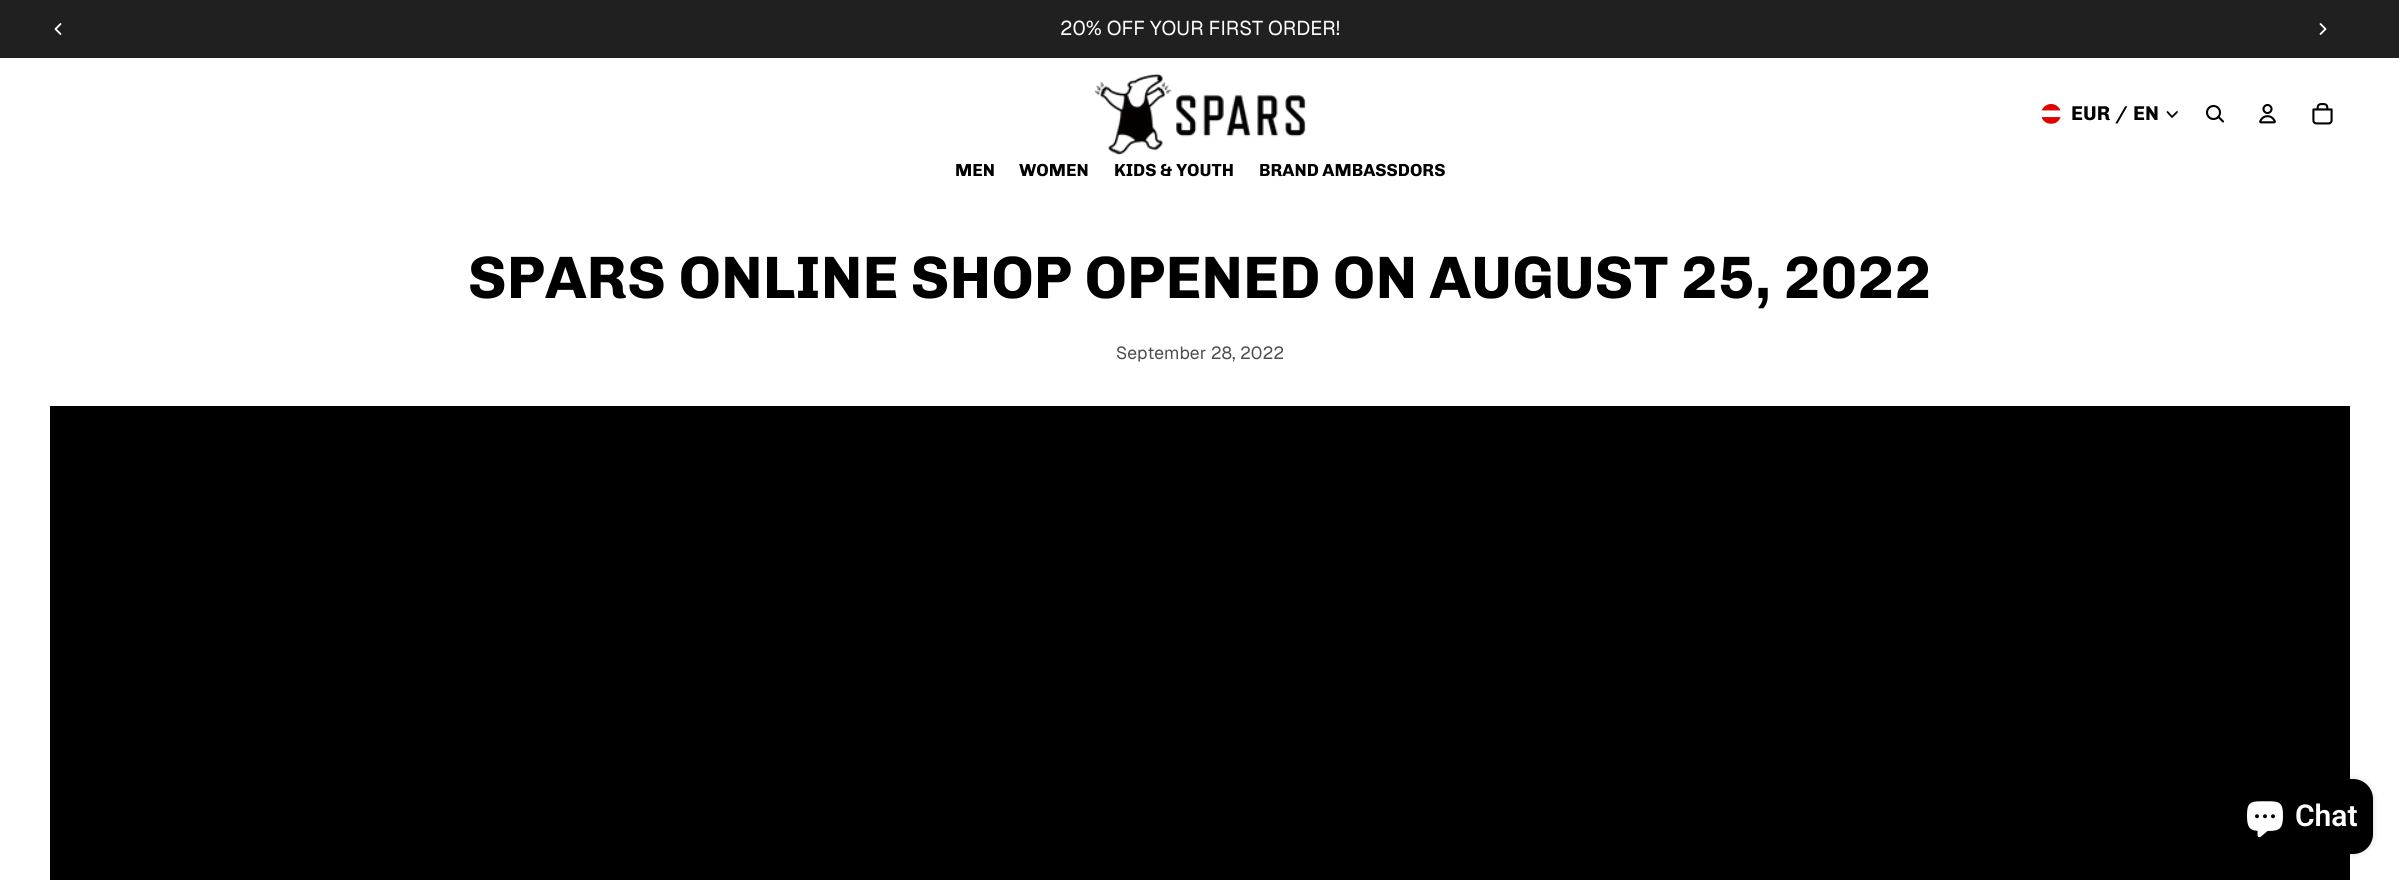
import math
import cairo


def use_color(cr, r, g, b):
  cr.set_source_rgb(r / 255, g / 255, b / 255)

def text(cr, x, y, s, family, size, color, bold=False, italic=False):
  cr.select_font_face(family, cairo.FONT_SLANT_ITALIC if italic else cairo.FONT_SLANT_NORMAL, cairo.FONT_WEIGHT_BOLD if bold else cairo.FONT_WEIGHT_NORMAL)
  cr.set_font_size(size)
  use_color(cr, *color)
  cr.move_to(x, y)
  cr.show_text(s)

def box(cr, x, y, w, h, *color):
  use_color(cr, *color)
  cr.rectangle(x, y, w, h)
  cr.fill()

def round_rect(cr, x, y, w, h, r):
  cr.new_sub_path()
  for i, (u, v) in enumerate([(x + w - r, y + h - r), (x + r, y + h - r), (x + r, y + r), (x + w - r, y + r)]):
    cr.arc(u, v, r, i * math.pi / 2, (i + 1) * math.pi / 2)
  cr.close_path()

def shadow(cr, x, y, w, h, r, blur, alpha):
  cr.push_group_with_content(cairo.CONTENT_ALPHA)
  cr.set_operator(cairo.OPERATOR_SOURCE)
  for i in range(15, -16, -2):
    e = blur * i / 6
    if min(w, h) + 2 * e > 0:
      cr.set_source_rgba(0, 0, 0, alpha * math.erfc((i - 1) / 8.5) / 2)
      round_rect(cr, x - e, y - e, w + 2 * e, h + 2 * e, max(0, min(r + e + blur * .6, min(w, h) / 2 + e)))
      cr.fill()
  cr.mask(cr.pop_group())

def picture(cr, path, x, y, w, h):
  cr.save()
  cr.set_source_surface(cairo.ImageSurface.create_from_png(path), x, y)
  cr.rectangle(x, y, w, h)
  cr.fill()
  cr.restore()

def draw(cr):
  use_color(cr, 255, 255, 255)
  cr.paint()
  box(cr, 0, 0, 2399, 58, 32, 32, 32)
  cr.new_path()
  cr.move_to(60.5, 24)
  cr.line_to(55.5, 29)
  cr.line_to(60.5, 34)
  use_color(cr, 255, 255, 255)
  cr.set_line_width(1.8)
  cr.set_line_cap(cairo.LINE_CAP_ROUND)
  cr.set_line_join(cairo.LINE_JOIN_ROUND)
  cr.stroke()
  cr.new_path()
  cr.move_to(2320.5, 24)
  cr.line_to(2325.5, 29)
  cr.line_to(2320.5, 34)
  cr.stroke()
  picture(cr, "img_01.png", 1094, 73, 212, 82)
  picture(cr, "img_02.png", 2041, 104, 20, 20)
  cr.new_path()
  cr.move_to(2177, 112)
  cr.line_to(2172, 117)
  cr.line_to(2167.5, 112)
  use_color(cr, 0, 0, 0)
  cr.stroke()
  cr.arc(2213.5, 112.5, 6.5, 0, 2 * math.pi)
  cr.set_line_width(2.1)
  cr.set_line_cap(cairo.LINE_CAP_BUTT)
  cr.set_line_join(cairo.LINE_JOIN_MITER)
  cr.stroke()
  cr.new_path()
  cr.move_to(2218.5, 117)
  cr.line_to(2223, 121.5)
  cr.set_line_cap(cairo.LINE_CAP_ROUND)
  cr.set_line_join(cairo.LINE_JOIN_ROUND)
  cr.stroke()
  picture(cr, "img_03.png", 2259, 103, 17, 21)
  picture(cr, "img_04.png", 2312, 103, 21, 22)
  box(cr, 50, 406, 2300, 474, 0, 0, 0)
  use_color(cr, 0, 0, 0)
  shadow(cr, 2231, 779, 142, 75, 20, 3, 0.15)
  use_color(cr, 0, 0, 0)
  round_rect(cr, 2231, 779, 142, 75, 20)
  cr.fill()
  picture(cr, "img_05.png", 2247, 801, 36, 37)
  text(cr, 1060, 35, "20% OFF YOUR FIRST ORDER!", "Geist", 20, (255, 255, 255))
  text(cr, 2071, 120, "EUR", "Chivo", 20, (0, 0, 0), bold=True)
  text(cr, 2115, 120, "/", "Chivo", 20, (0, 0, 0), bold=True)
  text(cr, 2133, 120, "EN", "Chivo", 20, (0, 0, 0), bold=True)
  text(cr, 955, 176, "MEN", "Chivo", 17.5, (0, 0, 0), bold=True)
  text(cr, 1019, 176, "WOMEN", "Chivo", 17.5, (0, 0, 0), bold=True)
  text(cr, 1114, 176, "KIDS & YOUTH", "Chivo", 17.5, (0, 0, 0), bold=True)
  text(cr, 1259, 176, "BRAND AMBASSDORS", "Chivo", 17.5, (0, 0, 0), bold=True)
  text(cr, 468, 298, "SPARS ONLINE SHOP OPENED ON AUGUST 25, 2022", "Chivo", 60, (0, 0, 0), bold=True)
  text(cr, 1116, 359, "September 28, 2022", "Geist", 17.5, (77, 77, 77))
  text(cr, 2295, 826, "Chat", "Roboto SemiBold", 30, (255, 255, 255))


surface = cairo.ImageSurface(cairo.FORMAT_RGB24, 2399, 880)
cr = cairo.Context(surface)
options = cairo.FontOptions()
options.set_hint_metrics(cairo.HINT_METRICS_OFF)
options.set_hint_style(cairo.HINT_STYLE_NONE)
cr.set_font_options(options)
cr.set_miter_limit(4)
draw(cr)
surface.write_to_png("out.png")
